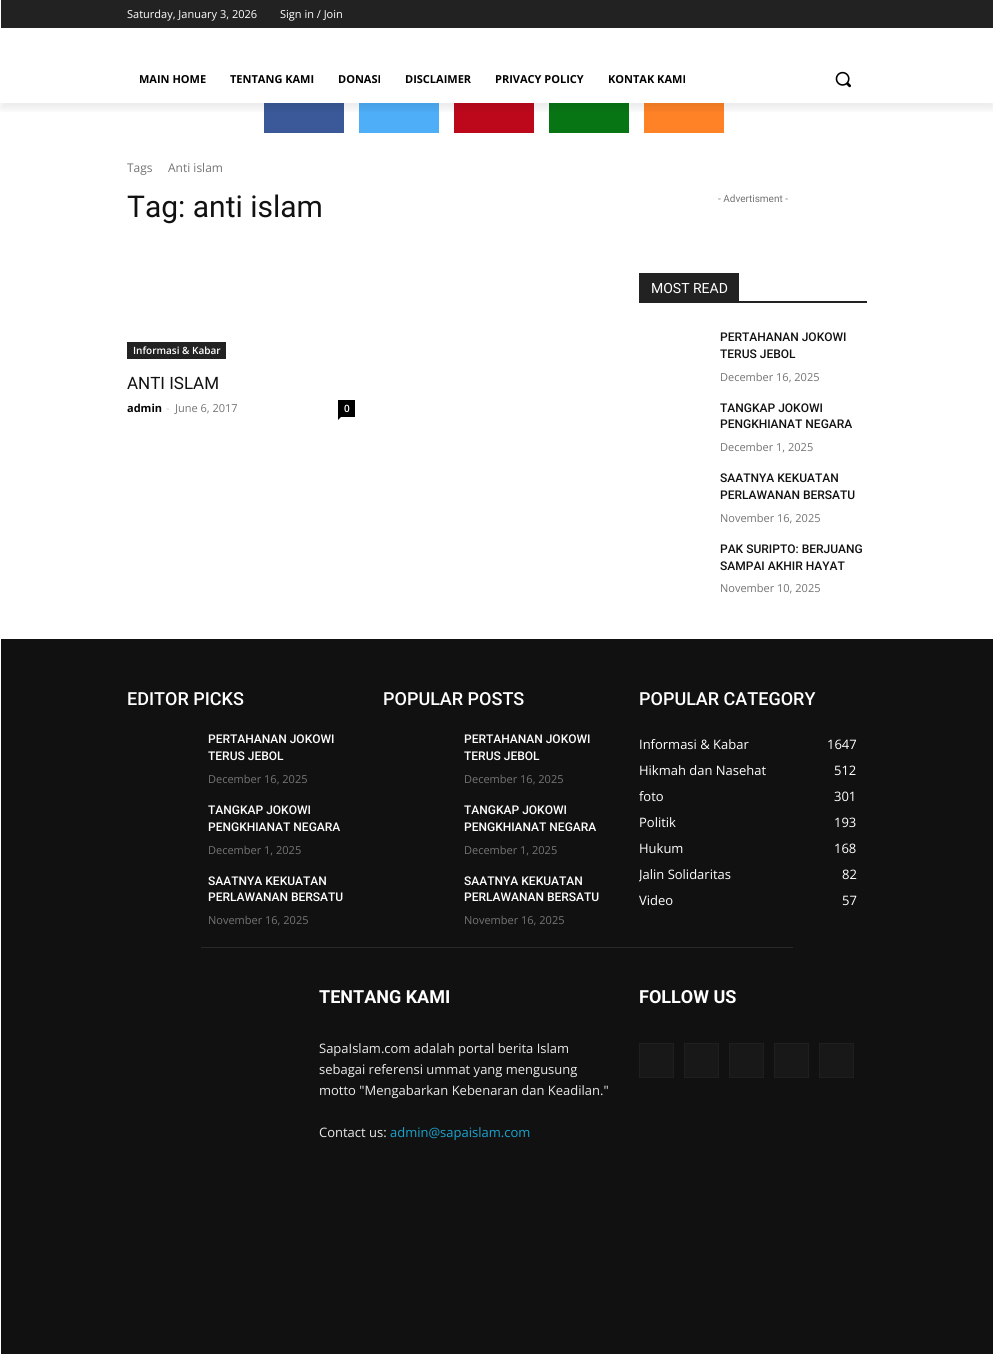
import math
import cairo


def use_color(cr, r, g, b):
  cr.set_source_rgb(r / 255, g / 255, b / 255)

def text(cr, x, y, s, family, size, color, bold=False, italic=False):
  cr.select_font_face(family, cairo.FONT_SLANT_ITALIC if italic else cairo.FONT_SLANT_NORMAL, cairo.FONT_WEIGHT_BOLD if bold else cairo.FONT_WEIGHT_NORMAL)
  cr.set_font_size(size)
  use_color(cr, *color)
  cr.move_to(x, y)
  cr.show_text(s)

def box(cr, x, y, w, h, *color):
  use_color(cr, *color)
  cr.rectangle(x, y, w, h)
  cr.fill()

def round_rect(cr, x, y, w, h, r):
  cr.new_sub_path()
  for i, (u, v) in enumerate([(x + w - r, y + h - r), (x + r, y + h - r), (x + r, y + r), (x + w - r, y + r)]):
    cr.arc(u, v, r, i * math.pi / 2, (i + 1) * math.pi / 2)
  cr.close_path()

def shadow(cr, x, y, w, h, r, blur, alpha):
  cr.push_group_with_content(cairo.CONTENT_ALPHA)
  cr.set_operator(cairo.OPERATOR_SOURCE)
  for i in range(15, -16, -2):
    e = blur * i / 6
    if min(w, h) + 2 * e > 0:
      cr.set_source_rgba(0, 0, 0, alpha * math.erfc((i - 1) / 8.5) / 2)
      round_rect(cr, x - e, y - e, w + 2 * e, h + 2 * e, max(0, min(r + e + blur * .6, min(w, h) / 2 + e)))
      cr.fill()
  cr.mask(cr.pop_group())

def picture(cr, path, x, y, w, h):
  cr.save()
  cr.set_source_surface(cairo.ImageSurface.create_from_png(path), x, y)
  cr.rectangle(x, y, w, h)
  cr.fill()
  cr.restore()

def draw(cr):
  use_color(cr, 255, 255, 255)
  cr.paint()
  box(cr, 1, 0, 992, 28, 34, 34, 34)
  box(cr, 264, 103, 80, 30, 59, 89, 152)
  box(cr, 359, 103, 80, 30, 78, 174, 248)
  box(cr, 454, 103, 80, 30, 189, 8, 28)
  box(cr, 549, 103, 80, 30, 8, 117, 21)
  box(cr, 644, 103, 80, 30, 255, 130, 38)
  cr.save()
  cr.rectangle(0, 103, 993, 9)
  cr.clip()
  use_color(cr, 0, 0, 0)
  shadow(cr, 1, 6, 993, 103, 0, 4, 0.08)
  cr.restore()
  picture(cr, "img_01.png", 835, 71, 16, 17)
  box(cr, 127, 342, 99, 17, 34, 34, 34)
  box(cr, 338, 400, 17, 17, 0, 0, 0)
  cr.new_path()
  cr.move_to(338, 417)
  cr.line_to(341, 417)
  cr.line_to(338, 420)
  cr.close_path()
  cr.fill()
  box(cr, 639, 301, 228, 2, 34, 34, 34)
  box(cr, 639, 273, 100, 28, 34, 34, 34)
  box(cr, 1, 639, 992, 715, 17, 17, 17)
  box(cr, 201, 947, 592, 1, 41, 41, 41)
  use_color(cr, 24, 24, 24)
  cr.rectangle(639.5, 1043.5, 34, 34)
  cr.fill_preserve()
  use_color(cr, 31, 31, 31)
  cr.set_line_width(1)
  cr.stroke()
  use_color(cr, 24, 24, 24)
  cr.rectangle(684.5, 1043.5, 34, 34)
  cr.fill_preserve()
  use_color(cr, 31, 31, 31)
  cr.stroke()
  use_color(cr, 24, 24, 24)
  cr.rectangle(729.5, 1043.5, 34, 34)
  cr.fill_preserve()
  use_color(cr, 31, 31, 31)
  cr.stroke()
  use_color(cr, 24, 24, 24)
  cr.rectangle(774.5, 1043.5, 34, 34)
  cr.fill_preserve()
  use_color(cr, 31, 31, 31)
  cr.stroke()
  use_color(cr, 24, 24, 24)
  cr.rectangle(819.5, 1043.5, 34, 34)
  cr.fill_preserve()
  use_color(cr, 31, 31, 31)
  cr.stroke()
  text(cr, 127, 18, "Saturday, January 3, 2026", "Open Sans", 11, (255, 255, 255))
  text(cr, 280, 18, "Sign in / Join", "Open Sans", 11, (255, 255, 255))
  text(cr, 139, 83, "MAIN HOME", "Open Sans", 11, (0, 0, 0), bold=True)
  text(cr, 230, 83, "TENTANG KAMI", "Open Sans", 11, (0, 0, 0), bold=True)
  text(cr, 338, 83, "DONASI", "Open Sans", 11, (0, 0, 0), bold=True)
  text(cr, 405, 83, "DISCLAIMER", "Open Sans", 11, (0, 0, 0), bold=True)
  text(cr, 495, 83, "PRIVACY POLICY", "Open Sans", 11, (0, 0, 0), bold=True)
  text(cr, 608, 83, "KONTAK KAMI", "Open Sans", 11, (0, 0, 0), bold=True)
  text(cr, 127, 172, "Tags", "Open Sans", 12, (116, 116, 116))
  text(cr, 168, 172, "Anti islam", "Open Sans", 12, (116, 116, 116))
  text(cr, 127, 217, "Tag: anti islam", "Roboto", 30, (17, 17, 17))
  text(cr, 133, 354, "Informasi & Kabar", "Open Sans SemiBold", 10, (255, 255, 255))
  text(cr, 127, 389, "ANTI ISLAM", "Roboto", 17, (17, 17, 17))
  text(cr, 127, 412, "admin", "Open Sans", 11, (0, 0, 0), bold=True)
  text(cr, 166, 412, "-", "Open Sans", 11, (204, 204, 204))
  text(cr, 175, 412, "June 6, 2017", "Open Sans", 11, (116, 116, 116))
  text(cr, 344, 412, "0", "Open Sans SemiBold", 10, (255, 255, 255))
  text(cr, 718, 202, "- Advertisment -", "Roboto", 10, (116, 116, 116))
  text(cr, 651, 293, "MOST READ", "Roboto", 14, (255, 255, 255))
  text(cr, 720, 341, "PERTAHANAN JOKOWI", "Roboto Medium", 12, (17, 17, 17))
  text(cr, 720, 358, "TERUS JEBOL", "Roboto Medium", 12, (17, 17, 17))
  text(cr, 720, 381, "December 16, 2025", "Open Sans", 11, (116, 116, 116))
  text(cr, 720, 412, "TANGKAP JOKOWI", "Roboto Medium", 12, (17, 17, 17))
  text(cr, 720, 428, "PENGKHIANAT NEGARA", "Roboto Medium", 12, (17, 17, 17))
  text(cr, 720, 451, "December 1, 2025", "Open Sans", 11, (116, 116, 116))
  text(cr, 720, 482, "SAATNYA KEKUATAN", "Roboto Medium", 12, (17, 17, 17))
  text(cr, 720, 499, "PERLAWANAN BERSATU", "Roboto Medium", 12, (17, 17, 17))
  text(cr, 720, 522, "November 16, 2025", "Open Sans", 11, (116, 116, 116))
  text(cr, 720, 553, "PAK SURIPTO: BERJUANG", "Roboto Medium", 12, (17, 17, 17))
  text(cr, 720, 570, "SAMPAI AKHIR HAYAT", "Roboto Medium", 12, (17, 17, 17))
  text(cr, 720, 592, "November 10, 2025", "Open Sans", 11, (116, 116, 116))
  text(cr, 127, 705, "EDITOR PICKS", "Roboto Medium", 18, (255, 255, 255))
  text(cr, 208, 743, "PERTAHANAN JOKOWI", "Roboto Medium", 12, (255, 255, 255))
  text(cr, 208, 760, "TERUS JEBOL", "Roboto Medium", 12, (255, 255, 255))
  text(cr, 208, 783, "December 16, 2025", "Open Sans", 11, (116, 116, 116))
  text(cr, 208, 814, "TANGKAP JOKOWI", "Roboto Medium", 12, (255, 255, 255))
  text(cr, 208, 831, "PENGKHIANAT NEGARA", "Roboto Medium", 12, (255, 255, 255))
  text(cr, 208, 854, "December 1, 2025", "Open Sans", 11, (116, 116, 116))
  text(cr, 208, 885, "SAATNYA KEKUATAN", "Roboto Medium", 12, (255, 255, 255))
  text(cr, 208, 901, "PERLAWANAN BERSATU", "Roboto Medium", 12, (255, 255, 255))
  text(cr, 208, 924, "November 16, 2025", "Open Sans", 11, (116, 116, 116))
  text(cr, 383, 705, "POPULAR POSTS", "Roboto Medium", 18, (255, 255, 255))
  text(cr, 464, 743, "PERTAHANAN JOKOWI", "Roboto Medium", 12, (255, 255, 255))
  text(cr, 464, 760, "TERUS JEBOL", "Roboto Medium", 12, (255, 255, 255))
  text(cr, 464, 783, "December 16, 2025", "Open Sans", 11, (116, 116, 116))
  text(cr, 464, 814, "TANGKAP JOKOWI", "Roboto Medium", 12, (255, 255, 255))
  text(cr, 464, 831, "PENGKHIANAT NEGARA", "Roboto Medium", 12, (255, 255, 255))
  text(cr, 464, 854, "December 1, 2025", "Open Sans", 11, (116, 116, 116))
  text(cr, 464, 885, "SAATNYA KEKUATAN", "Roboto Medium", 12, (255, 255, 255))
  text(cr, 464, 901, "PERLAWANAN BERSATU", "Roboto Medium", 12, (255, 255, 255))
  text(cr, 464, 924, "November 16, 2025", "Open Sans", 11, (116, 116, 116))
  text(cr, 639, 705, "POPULAR CATEGORY", "Roboto Medium", 18, (255, 255, 255))
  text(cr, 639, 749, "Informasi & Kabar", "Open Sans", 13, (255, 255, 255))
  text(cr, 827, 749, "1647", "Open Sans", 13, (255, 255, 255))
  text(cr, 639, 775, "Hikmah dan Nasehat", "Open Sans", 13, (255, 255, 255))
  text(cr, 834, 775, "512", "Open Sans", 13, (255, 255, 255))
  text(cr, 639, 801, "foto", "Open Sans", 13, (255, 255, 255))
  text(cr, 834, 801, "301", "Open Sans", 13, (255, 255, 255))
  text(cr, 639, 827, "Politik", "Open Sans", 13, (255, 255, 255))
  text(cr, 834, 827, "193", "Open Sans", 13, (255, 255, 255))
  text(cr, 639, 853, "Hukum", "Open Sans", 13, (255, 255, 255))
  text(cr, 834, 853, "168", "Open Sans", 13, (255, 255, 255))
  cr.save()
  cr.rectangle(639, 683, 228, 244)
  cr.clip()
  text(cr, 639, 879, "Jalin Solidaritas", "Open Sans", 13, (255, 255, 255))
  cr.restore()
  text(cr, 842, 879, "82", "Open Sans", 13, (255, 255, 255))
  text(cr, 639, 905, "Video", "Open Sans", 13, (255, 255, 255))
  text(cr, 842, 905, "57", "Open Sans", 13, (255, 255, 255))
  text(cr, 319, 1003, "TENTANG KAMI", "Roboto", 18, (255, 255, 255), bold=True)
  text(cr, 319, 1053, "SapaIslam.com adalah portal berita Islam", "Open Sans", 13, (234, 234, 234))
  text(cr, 319, 1074, "sebagai referensi ummat yang mengusung", "Open Sans", 13, (234, 234, 234))
  text(cr, 319, 1095, "motto \"Mengabarkan Kebenaran dan Keadilan.\"", "Open Sans", 13, (234, 234, 234))
  text(cr, 319, 1137, "Contact us:", "Open Sans", 13, (234, 234, 234))
  text(cr, 390, 1137, "admin@sapaislam.com", "Open Sans", 13, (26, 164, 206))
  text(cr, 639, 1003, "FOLLOW US", "Roboto", 18, (255, 255, 255), bold=True)


surface = cairo.ImageSurface(cairo.FORMAT_RGB24, 993, 1354)
cr = cairo.Context(surface)
options = cairo.FontOptions()
options.set_hint_metrics(cairo.HINT_METRICS_OFF)
options.set_hint_style(cairo.HINT_STYLE_NONE)
cr.set_font_options(options)
cr.set_miter_limit(4)
draw(cr)
surface.write_to_png("out.png")
